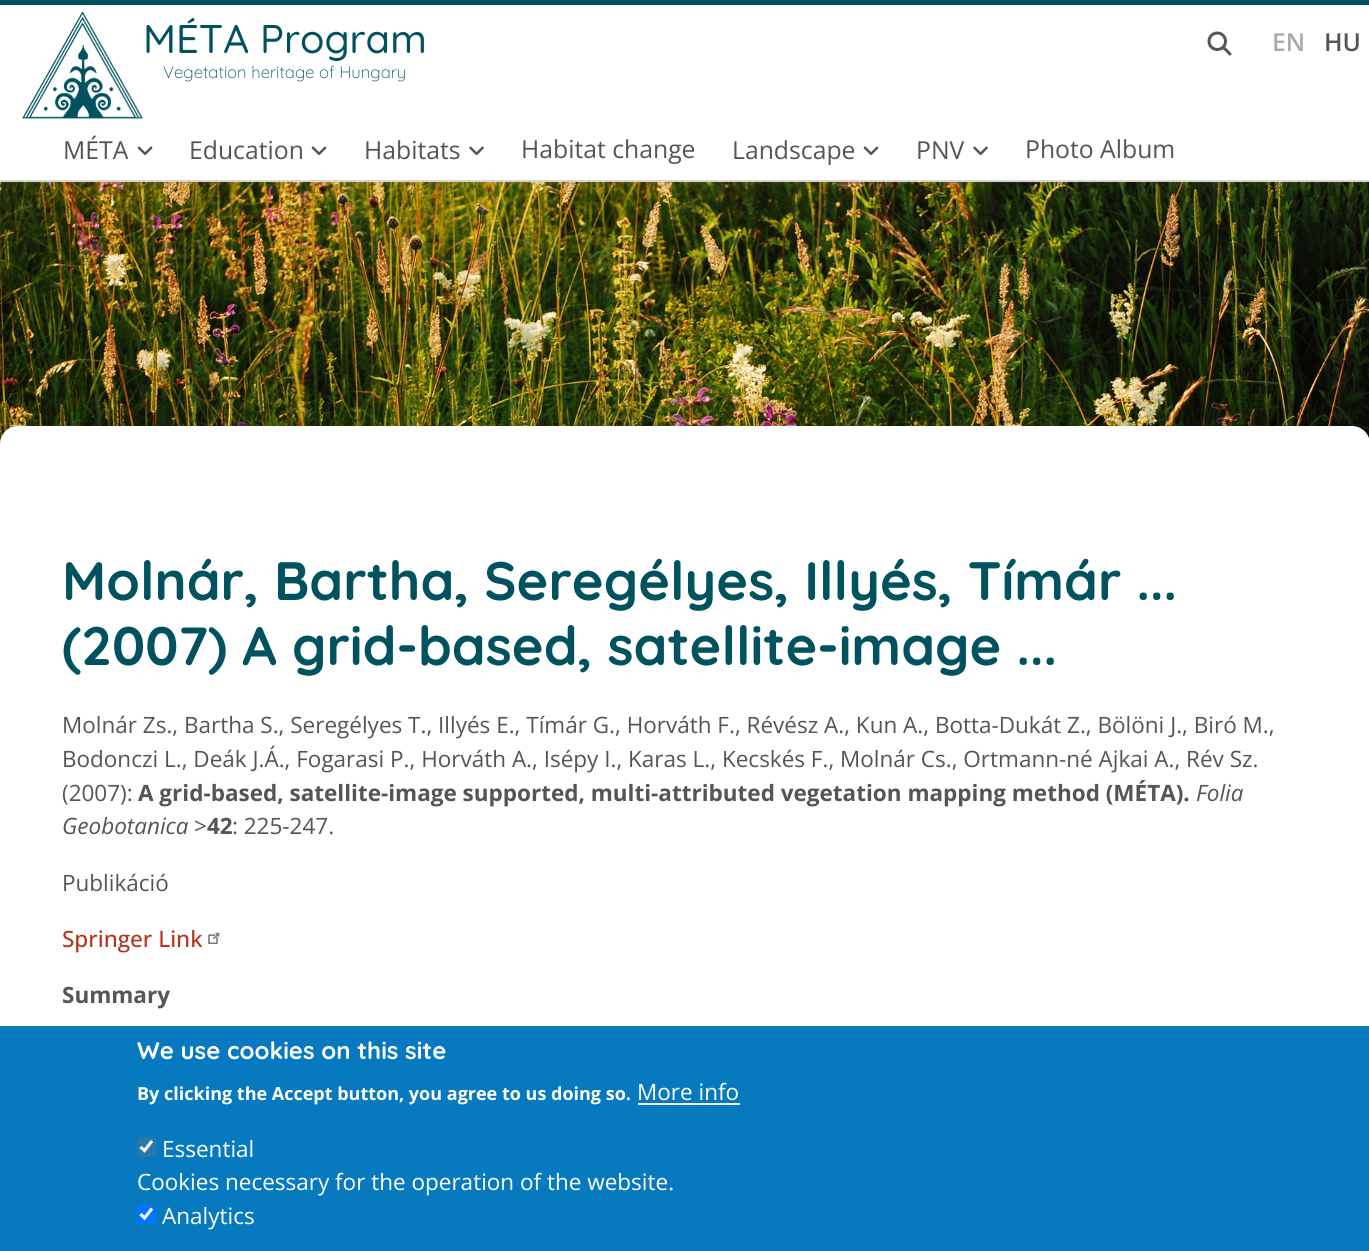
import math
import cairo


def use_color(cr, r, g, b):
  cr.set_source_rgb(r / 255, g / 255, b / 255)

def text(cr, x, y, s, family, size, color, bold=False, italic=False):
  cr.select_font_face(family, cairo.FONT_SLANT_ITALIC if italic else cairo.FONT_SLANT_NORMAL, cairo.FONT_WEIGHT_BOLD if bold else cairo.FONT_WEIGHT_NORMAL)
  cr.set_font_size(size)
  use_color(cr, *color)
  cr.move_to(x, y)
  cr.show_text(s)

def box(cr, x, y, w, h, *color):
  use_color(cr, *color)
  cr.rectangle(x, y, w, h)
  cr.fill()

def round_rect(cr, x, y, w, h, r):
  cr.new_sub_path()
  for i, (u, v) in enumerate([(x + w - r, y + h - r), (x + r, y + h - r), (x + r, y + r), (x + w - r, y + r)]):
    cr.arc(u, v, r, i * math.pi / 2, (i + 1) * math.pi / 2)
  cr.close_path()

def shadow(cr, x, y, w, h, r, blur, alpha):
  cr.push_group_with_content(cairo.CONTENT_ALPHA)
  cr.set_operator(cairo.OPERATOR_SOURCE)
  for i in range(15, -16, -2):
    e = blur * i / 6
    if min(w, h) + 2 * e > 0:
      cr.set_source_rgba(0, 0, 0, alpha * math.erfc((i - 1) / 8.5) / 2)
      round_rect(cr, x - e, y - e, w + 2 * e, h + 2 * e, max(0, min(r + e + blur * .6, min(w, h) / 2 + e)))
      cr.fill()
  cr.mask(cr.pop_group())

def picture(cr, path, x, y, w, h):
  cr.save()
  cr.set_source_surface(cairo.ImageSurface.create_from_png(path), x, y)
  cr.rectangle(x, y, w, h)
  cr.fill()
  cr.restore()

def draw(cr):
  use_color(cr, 255, 255, 255)
  cr.paint()
  picture(cr, "img_05.png", 0, 182, 1369, 262)
  use_color(cr, 80, 80, 80)
  shadow(cr, 0, 3, 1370, 182, 0, 4.5, 0.1)
  box(cr, 0, 5, 1369, 175, 255, 255, 255)
  box(cr, 0, 0, 1369, 5, 0, 83, 94)
  box(cr, 0, 180, 1369, 2, 212, 212, 212)
  picture(cr, "img_01.png", 22, 12, 121, 107)
  picture(cr, "img_02.png", 1207, 31, 25, 25)
  picture(cr, "img_03.png", 137, 146, 16, 9)
  picture(cr, "img_03.png", 311, 146, 16, 9)
  picture(cr, "img_04.png", 469, 146, 15, 9)
  picture(cr, "img_03.png", 863, 146, 16, 9)
  picture(cr, "img_04.png", 973, 146, 15, 9)
  use_color(cr, 255, 255, 255)
  round_rect(cr, 1, 427, 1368, 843, 17)
  cr.fill_preserve()
  cr.stroke()
  picture(cr, "img_06.png", 208, 932, 12, 12)
  box(cr, 0, 1026, 1369, 225, 7, 121, 191)
  box(cr, 638, 1103, 102, 2, 255, 255, 255)
  use_color(cr, 40, 120, 169)
  round_rect(cr, 137, 1137, 19, 20, 3)
  cr.fill()
  cr.new_path()
  cr.move_to(140.5, 1147)
  cr.line_to(144.5, 1150.5)
  cr.line_to(152, 1141)
  use_color(cr, 255, 255, 255)
  cr.set_line_width(3.1)
  cr.stroke()
  use_color(cr, 0, 117, 255)
  round_rect(cr, 137, 1205, 19, 19, 3)
  cr.fill()
  cr.new_path()
  cr.move_to(140.5, 1214)
  cr.line_to(144.5, 1218)
  cr.line_to(152, 1208.5)
  use_color(cr, 255, 255, 255)
  cr.stroke()
  text(cr, 143, 53, "MÉTA Program", "Quicksand Medium", 40, (0, 83, 94))
  text(cr, 163, 78, "Vegetation heritage of Hungary", "Quicksand Light", 16.75, (0, 83, 94))
  text(cr, 1272, 51, "EN", "Open Sans SemiBold", 24.75, (170, 170, 170))
  text(cr, 1324, 51, "HU", "Open Sans SemiBold", 24.75, (85, 85, 85))
  text(cr, 63, 159, "MÉTA", "Open Sans", 24.75, (85, 85, 85))
  text(cr, 189, 159, "Education", "Open Sans", 24.75, (85, 85, 85))
  text(cr, 364, 159, "Habitats", "Open Sans", 24.75, (85, 85, 85))
  text(cr, 521, 158, "Habitat change", "Open Sans", 24.75, (85, 85, 85))
  text(cr, 732, 159, "Landscape", "Open Sans", 24.75, (85, 85, 85))
  text(cr, 916, 159, "PNV", "Open Sans", 24.75, (85, 85, 85))
  text(cr, 1025, 158, "Photo Album", "Open Sans", 24.75, (85, 85, 85))
  text(cr, 62, 600, "Molnár, Bartha, Seregélyes, Illyés, Tímár ...", "Quicksand", 54, (0, 83, 94), bold=True)
  text(cr, 62, 665, "(2007) A grid-based, satellite-image ...", "Quicksand", 54, (0, 83, 94), bold=True)
  text(cr, 62, 733, "Molnár Zs., Bartha S., Seregélyes T., Illyés E., Tímár G., Horváth F., Révész A., Kun A., Botta-Dukát Z., Bölöni J., Biró M.,", "Open Sans", 22.5, (85, 85, 85))
  text(cr, 62, 767, "Bodonczi L., Deák J.Á., Fogarasi P., Horváth A., Isépy I., Karas L., Kecskés F., Molnár Cs., Ortmann-né Ajkai A., Rév Sz.", "Open Sans", 22.5, (85, 85, 85))
  text(cr, 62, 801, "(2007):", "Open Sans", 22.5, (85, 85, 85))
  text(cr, 138, 801, "A grid-based, satellite-image supported, multi-attributed vegetation mapping method (MÉTA).", "Open Sans", 22.5, (85, 85, 85), bold=True)
  text(cr, 1196, 801, "Folia", "Open Sans", 22.5, (85, 85, 85), italic=True)
  text(cr, 62, 834, "Geobotanica", "Open Sans", 22.5, (85, 85, 85), italic=True)
  text(cr, 194, 834, ">", "Open Sans", 22.5, (85, 85, 85))
  text(cr, 207, 834, "42", "Open Sans", 22.5, (85, 85, 85), bold=True)
  text(cr, 232, 834, ": 225-247.", "Open Sans", 22.5, (85, 85, 85))
  text(cr, 62, 891, "Publikáció", "Open Sans", 22.5, (85, 85, 85))
  text(cr, 62, 947, "Springer Link", "Open Sans Medium", 22.5, (181, 51, 31))
  text(cr, 62, 1003, "Summary", "Open Sans", 22.5, (85, 85, 85), bold=True)
  text(cr, 137, 1059, "We use cookies on this site", "Quicksand", 24, (255, 255, 255), bold=True)
  text(cr, 137, 1100, "By clicking the Accept button, you agree to us doing so.", "Open Sans", 18, (255, 255, 255), bold=True)
  text(cr, 637, 1100, "More info", "Open Sans", 22.5, (255, 255, 255))
  text(cr, 162, 1157, "Essential", "Open Sans", 22.5, (255, 255, 255))
  text(cr, 137, 1190, "Cookies necessary for the operation of the website.", "Open Sans", 22.5, (255, 255, 255))
  text(cr, 162, 1224, "Analytics", "Open Sans", 22.5, (255, 255, 255))


surface = cairo.ImageSurface(cairo.FORMAT_RGB24, 1369, 1251)
cr = cairo.Context(surface)
options = cairo.FontOptions()
options.set_hint_metrics(cairo.HINT_METRICS_OFF)
options.set_hint_style(cairo.HINT_STYLE_NONE)
cr.set_font_options(options)
cr.set_miter_limit(4)
draw(cr)
surface.write_to_png("out.png")
